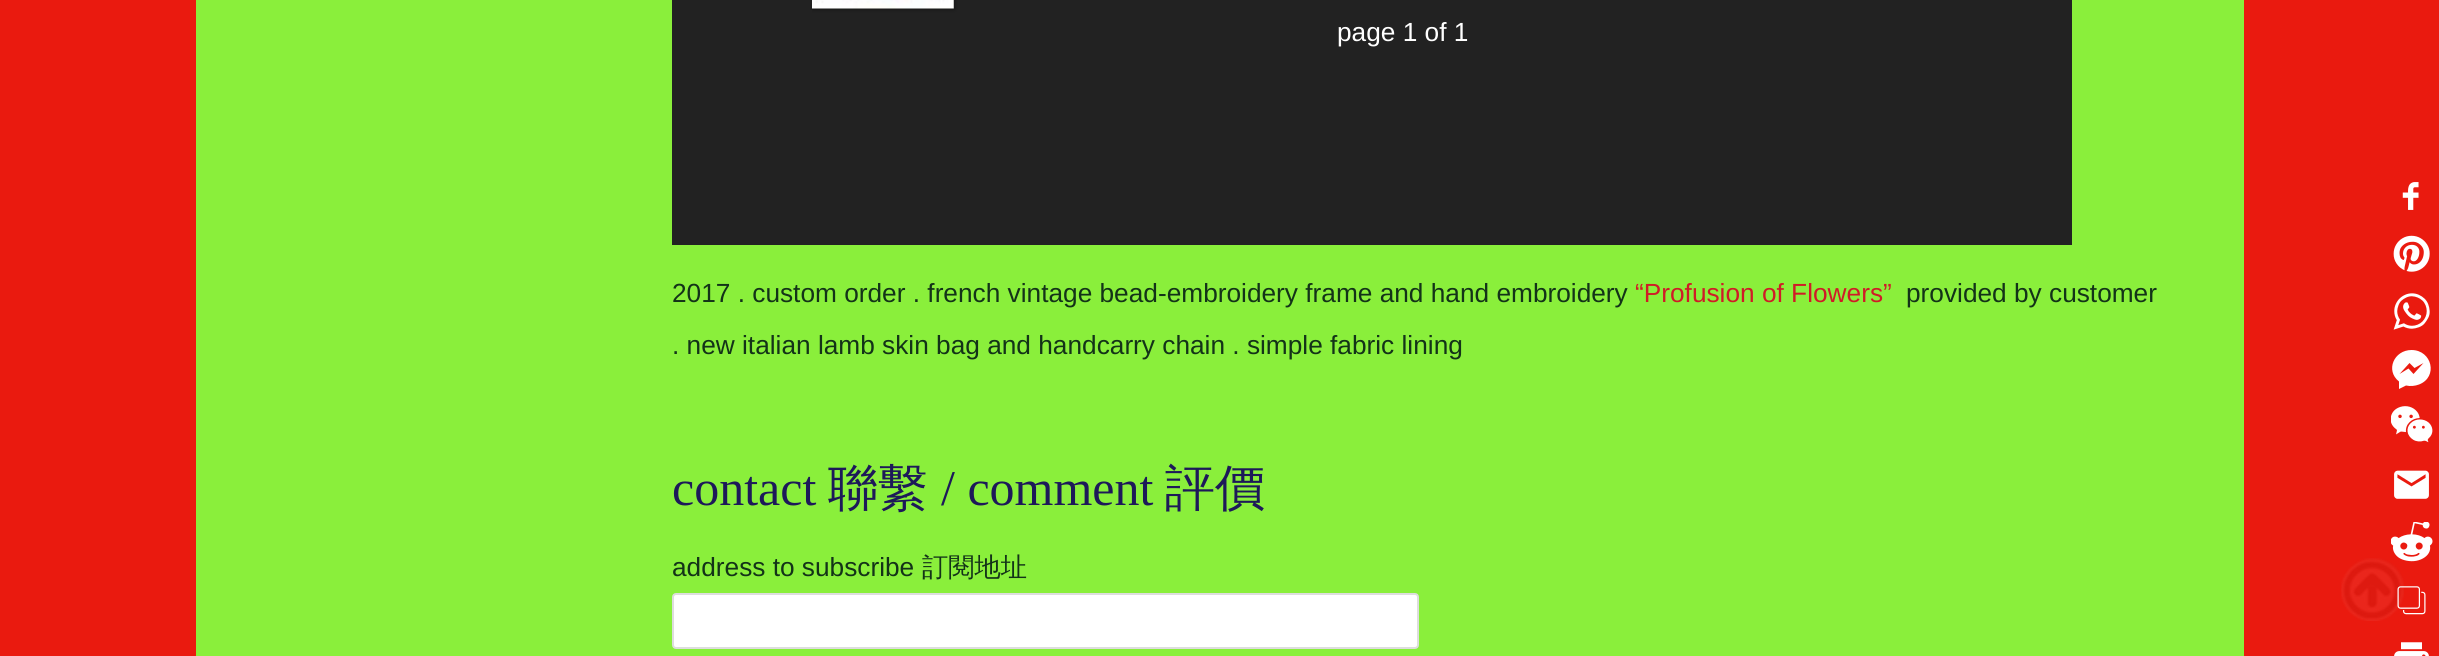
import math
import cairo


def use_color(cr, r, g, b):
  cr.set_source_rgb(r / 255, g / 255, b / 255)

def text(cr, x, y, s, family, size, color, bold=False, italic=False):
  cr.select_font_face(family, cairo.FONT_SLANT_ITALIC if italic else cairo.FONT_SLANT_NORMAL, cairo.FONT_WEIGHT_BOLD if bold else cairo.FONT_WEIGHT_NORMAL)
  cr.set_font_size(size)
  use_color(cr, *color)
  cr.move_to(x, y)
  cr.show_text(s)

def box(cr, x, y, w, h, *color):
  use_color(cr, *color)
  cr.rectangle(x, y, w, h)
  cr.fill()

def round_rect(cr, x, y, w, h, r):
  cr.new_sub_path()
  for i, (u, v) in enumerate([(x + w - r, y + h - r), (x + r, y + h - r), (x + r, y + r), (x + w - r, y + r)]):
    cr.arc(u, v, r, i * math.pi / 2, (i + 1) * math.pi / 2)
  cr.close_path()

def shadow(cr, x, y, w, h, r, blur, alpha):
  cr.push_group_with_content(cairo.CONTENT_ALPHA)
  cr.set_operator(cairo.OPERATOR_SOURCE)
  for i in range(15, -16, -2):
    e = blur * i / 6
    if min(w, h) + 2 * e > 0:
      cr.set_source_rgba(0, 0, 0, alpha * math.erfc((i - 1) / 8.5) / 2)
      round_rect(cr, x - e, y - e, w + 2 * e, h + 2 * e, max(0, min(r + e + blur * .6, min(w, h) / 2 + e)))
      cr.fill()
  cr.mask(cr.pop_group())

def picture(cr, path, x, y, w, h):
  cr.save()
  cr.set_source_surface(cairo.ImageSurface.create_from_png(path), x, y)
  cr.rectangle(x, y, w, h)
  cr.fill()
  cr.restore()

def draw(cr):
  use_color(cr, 234, 26, 15)
  cr.paint()
  box(cr, 196, 0, 2048, 656, 138, 239, 59)
  box(cr, 672, 0, 1400, 245, 34, 34, 34)
  cr.save()
  cr.rectangle(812, 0, 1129, 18)
  cr.clip()
  use_color(cr, 0, 0, 0)
  shadow(cr, 812, -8, 142, 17, 0, 2.5, 0.4)
  cr.restore()
  picture(cr, "img_01.png", 812, 0, 142, 9)
  use_color(cr, 255, 255, 255)
  round_rect(cr, 673, 594, 745, 54, 3)
  cr.fill_preserve()
  use_color(cr, 221, 221, 221)
  cr.stroke()
  picture(cr, "img_02.png", 2341, 558, 63, 63)
  picture(cr, "img_03.png", 2402, 182, 17, 28)
  picture(cr, "img_04.png", 2393, 235, 37, 37)
  picture(cr, "img_05.png", 2393, 293, 37, 37)
  use_color(cr, 255, 255, 255)
  cr.new_path()
  cr.move_to(2411.5, 350)
  cr.curve_to(2394, 350, 2385, 370.5, 2399, 381.5)
  cr.line_to(2399, 389)
  cr.line_to(2406, 385.5)
  cr.curve_to(2410.5, 386.5, 2415, 386, 2419, 384.5)
  cr.curve_to(2438.5, 377, 2432, 350, 2411.5, 350)
  cr.close_path()
  cr.move_to(2413.5, 374)
  cr.line_to(2408.5, 368.5)
  cr.line_to(2399.5, 374)
  cr.line_to(2409.5, 363)
  cr.line_to(2414.5, 368)
  cr.line_to(2423.5, 363)
  cr.close_path()
  cr.fill()
  picture(cr, "img_06.png", 2391, 406, 42, 37)
  picture(cr, "img_07.png", 2394, 470, 35, 29)
  picture(cr, "img_08.png", 2391, 522, 42, 40)
  picture(cr, "img_09.png", 2397, 586, 29, 29)
  picture(cr, "img_10.png", 2394, 642, 35, 14)
  text(cr, 1337, 41, "page 1 of 1", "Liberation Sans", 26.25, (255, 255, 255))
  text(cr, 672, 302, "2017 . custom order . french vintage bead-embroidery frame and hand embroidery", "Liberation Sans", 26.25, (19, 51, 24))
  text(cr, 1635, 302, "“Profusion of Flowers”", "Liberation Sans", 26.25, (208, 27, 39))
  text(cr, 1906, 302, "provided by customer", "Liberation Sans", 26.25, (19, 51, 24))
  text(cr, 672, 354, ". new italian lamb skin bag and handcarry chain . simple fabric lining", "Liberation Sans", 26.25, (19, 51, 24))
  text(cr, 672, 505, "contact", "Liberation Serif", 50, (29, 25, 89))
  text(cr, 828, 505, "聯繫", "WenQuanYi Zen Hei Medium", 50, (29, 25, 89))
  text(cr, 941, 505, "/ comment", "Liberation Serif", 50, (29, 25, 89))
  text(cr, 1165, 505, "評價", "WenQuanYi Zen Hei Medium", 50, (29, 25, 89))
  text(cr, 672, 576, "address to subscribe", "Liberation Sans", 26.25, (19, 51, 24))
  text(cr, 922, 576, "訂閱地址", "WenQuanYi Zen Hei Medium", 26.25, (19, 51, 24))


surface = cairo.ImageSurface(cairo.FORMAT_RGB24, 2439, 656)
cr = cairo.Context(surface)
options = cairo.FontOptions()
options.set_hint_metrics(cairo.HINT_METRICS_OFF)
options.set_hint_style(cairo.HINT_STYLE_NONE)
cr.set_font_options(options)
cr.set_miter_limit(4)
draw(cr)
surface.write_to_png("out.png")
